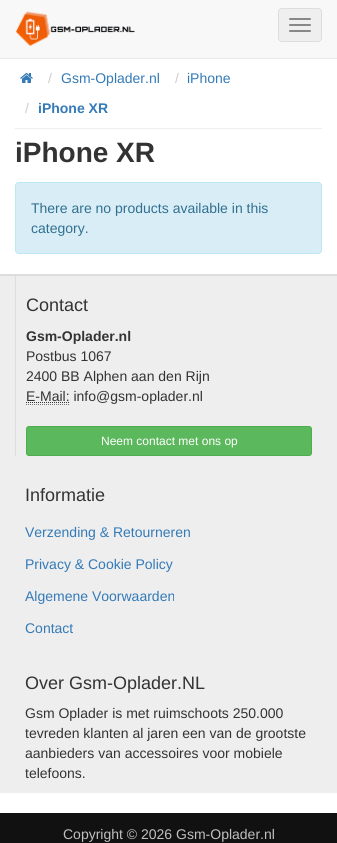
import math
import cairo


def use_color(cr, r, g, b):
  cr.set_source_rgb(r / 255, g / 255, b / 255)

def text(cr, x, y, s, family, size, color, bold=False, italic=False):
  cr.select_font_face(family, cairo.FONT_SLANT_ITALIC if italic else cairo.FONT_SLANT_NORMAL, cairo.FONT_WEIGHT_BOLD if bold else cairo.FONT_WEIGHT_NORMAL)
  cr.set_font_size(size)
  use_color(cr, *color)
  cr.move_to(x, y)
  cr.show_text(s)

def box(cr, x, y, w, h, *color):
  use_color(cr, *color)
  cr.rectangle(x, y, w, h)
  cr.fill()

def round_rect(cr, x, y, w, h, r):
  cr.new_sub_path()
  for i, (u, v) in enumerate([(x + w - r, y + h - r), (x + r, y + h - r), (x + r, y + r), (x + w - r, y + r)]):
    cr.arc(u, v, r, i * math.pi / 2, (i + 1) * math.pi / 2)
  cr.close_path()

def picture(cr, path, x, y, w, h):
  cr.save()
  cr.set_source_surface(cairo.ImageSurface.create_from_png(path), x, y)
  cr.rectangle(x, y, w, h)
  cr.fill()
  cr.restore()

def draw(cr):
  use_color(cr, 255, 255, 255)
  cr.paint()
  box(cr, 0, 0, 337, 58, 248, 248, 248)
  box(cr, 0, 58, 337, 1, 231, 231, 231)
  picture(cr, "img_01.png", 16, 11, 119, 36)
  use_color(cr, 239, 239, 239)
  round_rect(cr, 278.5, 8.5, 43, 33, 3.5)
  cr.fill_preserve()
  use_color(cr, 221, 221, 221)
  cr.set_line_width(1)
  cr.stroke()
  use_color(cr, 136, 136, 136)
  round_rect(cr, 289, 18, 22, 2, 1)
  cr.fill()
  round_rect(cr, 289, 24, 22, 2, 1)
  cr.fill()
  round_rect(cr, 289, 30, 22, 2, 1)
  cr.fill()
  picture(cr, "img_02.png", 20, 73, 13, 10)
  box(cr, 15, 128, 307, 1, 238, 238, 238)
  use_color(cr, 217, 237, 247)
  round_rect(cr, 15.5, 182.5, 306, 71, 3.5)
  cr.fill_preserve()
  use_color(cr, 188, 232, 241)
  cr.stroke()
  box(cr, 0, 276, 337, 517, 238, 238, 238)
  box(cr, 0, 274, 337, 2, 221, 221, 221)
  box(cr, 15, 276, 1, 180, 221, 221, 221)
  cr.new_path()
  cr.move_to(26, 404.5)
  cr.line_to(70, 404.5)
  use_color(cr, 119, 119, 119)
  cr.set_dash([1, 1])
  cr.stroke()
  cr.new_path()
  cr.move_to(26, 402.5)
  cr.line_to(69.5, 402.5)
  use_color(cr, 51, 51, 51)
  cr.stroke()
  use_color(cr, 92, 184, 92)
  round_rect(cr, 26.5, 426.5, 285, 29, 2.5)
  cr.fill_preserve()
  use_color(cr, 76, 174, 76)
  cr.set_dash([])
  cr.stroke()
  box(cr, 0, 813, 337, 30, 17, 17, 17)
  text(cr, 48, 83, "/", "Liberation Sans", 14, (204, 204, 204))
  text(cr, 61, 83, "Gsm-Oplader.nl", "Liberation Sans", 14, (51, 122, 183))
  text(cr, 175, 83, "/", "Liberation Sans", 14, (204, 204, 204))
  text(cr, 187, 83, "iPhone", "Liberation Sans", 14, (51, 122, 183))
  text(cr, 25, 113, "/", "Liberation Sans", 14, (204, 204, 204))
  text(cr, 38, 113, "iPhone XR", "Liberation Sans", 14, (51, 122, 183), bold=True)
  text(cr, 15, 162, "iPhone XR", "Liberation Sans", 28, (51, 51, 51), bold=True)
  text(cr, 31, 213, "There are no products available in this", "Liberation Sans", 14, (49, 112, 143))
  text(cr, 31, 233, "category.", "Liberation Sans", 14, (49, 112, 143))
  text(cr, 26, 311, "Contact", "Liberation Sans", 18, (51, 51, 51))
  text(cr, 26, 341, "Gsm-Oplader.nl", "Liberation Sans", 14, (51, 51, 51), bold=True)
  text(cr, 26, 361, "Postbus 1067", "Liberation Sans", 14, (51, 51, 51))
  text(cr, 26, 381, "2400 BB Alphen aan den Rijn", "Liberation Sans", 14, (51, 51, 51))
  text(cr, 26, 401, "E-Mail: info@gsm-oplader.nl", "Liberation Sans", 14, (51, 51, 51))
  text(cr, 101, 445, "Neem contact met ons op", "Liberation Sans", 12, (255, 255, 255))
  text(cr, 25, 501, "Informatie", "Liberation Sans", 18, (51, 51, 51))
  text(cr, 25, 537, "Verzending & Retourneren", "Liberation Sans", 14, (51, 122, 183))
  text(cr, 25, 569, "Privacy & Cookie Policy", "Liberation Sans", 14, (51, 122, 183))
  text(cr, 25, 601, "Algemene Voorwaarden", "Liberation Sans", 14, (51, 122, 183))
  text(cr, 25, 633, "Contact", "Liberation Sans", 14, (51, 122, 183))
  text(cr, 25, 689, "Over Gsm-Oplader.NL", "Liberation Sans", 18, (51, 51, 51))
  text(cr, 25, 718, "Gsm Oplader is met ruimschoots 250.000", "Liberation Sans", 14, (51, 51, 51))
  text(cr, 25, 738, "tevreden klanten al jaren een van de grootste", "Liberation Sans", 14, (51, 51, 51))
  text(cr, 25, 758, "aanbieders van accessoires voor mobiele", "Liberation Sans", 14, (51, 51, 51))
  text(cr, 25, 778, "telefoons.", "Liberation Sans", 14, (51, 51, 51))
  text(cr, 63, 839, "Copyright © 2026 Gsm-Oplader.nl", "Liberation Sans", 14, (192, 192, 192))


surface = cairo.ImageSurface(cairo.FORMAT_RGB24, 337, 843)
cr = cairo.Context(surface)
options = cairo.FontOptions()
options.set_hint_metrics(cairo.HINT_METRICS_OFF)
options.set_hint_style(cairo.HINT_STYLE_NONE)
cr.set_font_options(options)
cr.set_miter_limit(4)
draw(cr)
surface.write_to_png("out.png")
